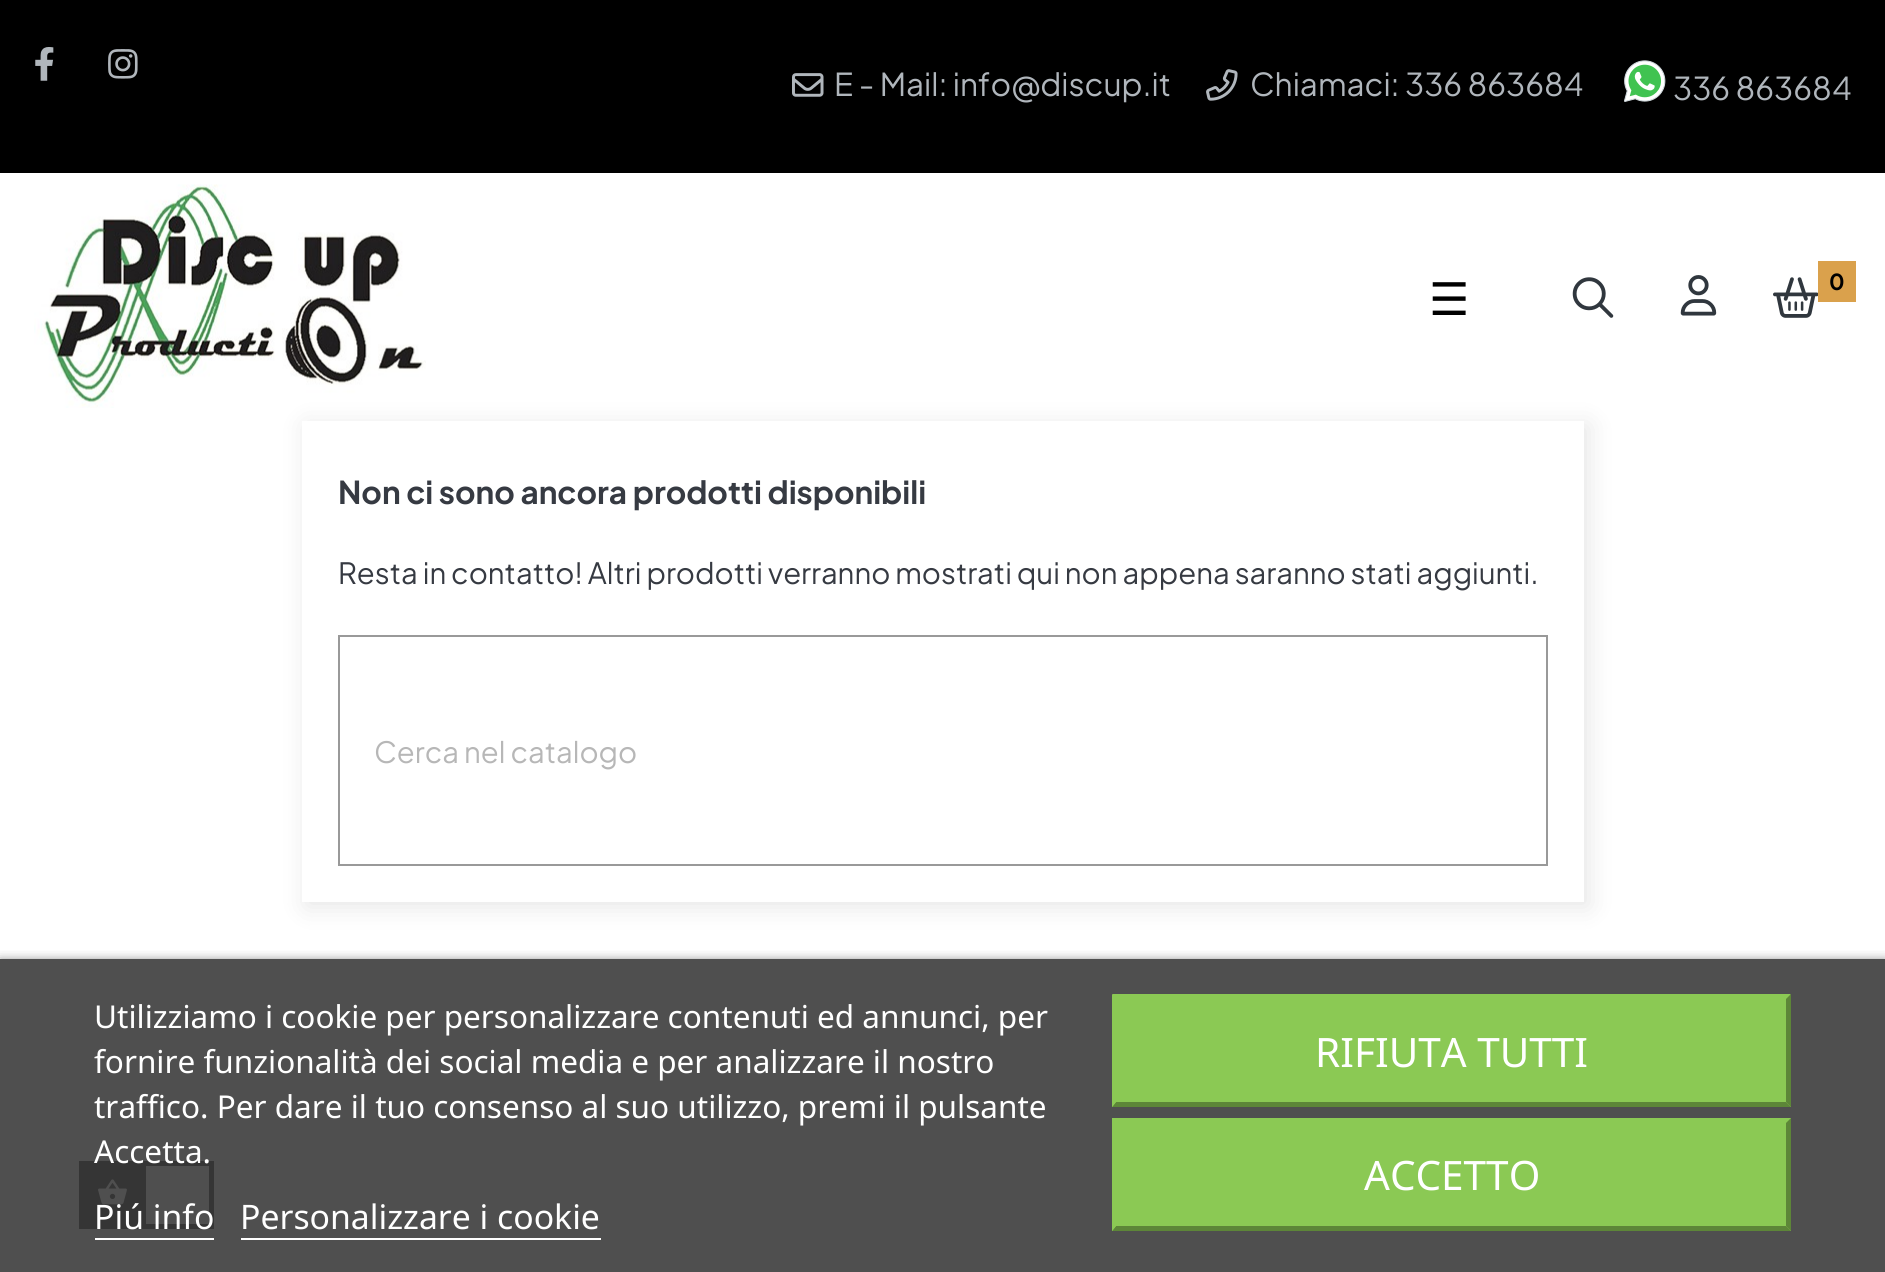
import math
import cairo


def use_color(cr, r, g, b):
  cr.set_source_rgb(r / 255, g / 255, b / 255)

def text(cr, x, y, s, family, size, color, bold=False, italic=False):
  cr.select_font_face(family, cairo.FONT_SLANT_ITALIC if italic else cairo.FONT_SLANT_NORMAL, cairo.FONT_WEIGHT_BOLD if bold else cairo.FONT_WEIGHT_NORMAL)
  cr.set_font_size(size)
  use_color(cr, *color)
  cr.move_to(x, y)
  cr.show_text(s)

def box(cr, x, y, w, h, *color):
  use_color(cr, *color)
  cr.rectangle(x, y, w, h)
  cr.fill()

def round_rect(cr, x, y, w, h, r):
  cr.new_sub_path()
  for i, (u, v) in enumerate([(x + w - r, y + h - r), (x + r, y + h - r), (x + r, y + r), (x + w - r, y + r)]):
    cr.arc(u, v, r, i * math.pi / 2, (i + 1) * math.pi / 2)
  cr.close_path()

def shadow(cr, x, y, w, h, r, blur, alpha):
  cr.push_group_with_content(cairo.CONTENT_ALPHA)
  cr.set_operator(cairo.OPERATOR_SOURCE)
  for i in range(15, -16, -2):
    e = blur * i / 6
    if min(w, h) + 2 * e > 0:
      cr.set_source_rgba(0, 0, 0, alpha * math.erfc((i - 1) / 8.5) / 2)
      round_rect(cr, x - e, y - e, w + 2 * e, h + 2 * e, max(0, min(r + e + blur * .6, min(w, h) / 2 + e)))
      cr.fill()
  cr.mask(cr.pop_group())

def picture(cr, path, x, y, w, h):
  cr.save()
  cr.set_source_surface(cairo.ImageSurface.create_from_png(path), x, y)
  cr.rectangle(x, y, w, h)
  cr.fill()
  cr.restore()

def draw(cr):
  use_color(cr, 255, 255, 255)
  cr.paint()
  box(cr, 0, 959, 1885, 313, 79, 79, 79)
  box(cr, 0, 0, 1885, 173, 0, 0, 0)
  picture(cr, "img_01.png", 35, 47, 19, 34)
  picture(cr, "img_02.png", 108, 49, 30, 30)
  picture(cr, "img_03.png", 792, 73, 32, 24)
  picture(cr, "img_04.png", 1206, 69, 32, 32)
  picture(cr, "img_05.png", 1624, 60, 42, 42)
  picture(cr, "img_06.png", 34, 184, 392, 224)
  picture(cr, "img_07.png", 1572, 277, 42, 41)
  picture(cr, "img_08.png", 1680, 275, 37, 41)
  picture(cr, "img_09.png", 1773, 277, 45, 41)
  box(cr, 1818, 261, 38, 41, 218, 161, 76)
  cr.save()
  cr.set_fill_rule(cairo.FILL_RULE_EVEN_ODD)
  cr.new_path()
  cr.move_to(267, 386)
  cr.line_to(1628, 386)
  cr.line_to(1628, 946)
  cr.line_to(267, 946)
  cr.close_path()
  cr.move_to(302, 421)
  cr.line_to(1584, 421)
  cr.line_to(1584, 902)
  cr.line_to(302, 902)
  cr.close_path()
  cr.clip()
  use_color(cr, 0, 0, 0)
  shadow(cr, 306, 425, 1283, 482, 0, 12.5, 0.1)
  cr.restore()
  cr.rectangle(339, 636, 1208, 229)
  use_color(cr, 153, 153, 153)
  cr.stroke()
  box(cr, 79, 1161, 135, 68, 53, 53, 53)
  picture(cr, "img_10.png", 98, 1179, 29, 26)
  box(cr, 146, 1166, 63, 58, 79, 79, 79)
  cr.save()
  cr.rectangle(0, 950, 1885, 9)
  cr.clip()
  use_color(cr, 112, 112, 112)
  shadow(cr, 0, 961, 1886, 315, 0, 5.5, 1)
  cr.restore()
  box(cr, 95, 1238, 119, 2, 255, 255, 255)
  box(cr, 241, 1238, 360, 2, 255, 255, 255)
  box(cr, 1112, 995, 679, 112, 139, 201, 84)
  cr.new_path()
  cr.move_to(1112, 994)
  cr.line_to(1791, 994)
  cr.line_to(1786, 999)
  cr.line_to(1116, 999)
  cr.close_path()
  cr.fill()
  use_color(cr, 93, 134, 56)
  cr.new_path()
  cr.move_to(1791, 994)
  cr.line_to(1791, 1107)
  cr.line_to(1786, 1102)
  cr.line_to(1786, 999)
  cr.close_path()
  cr.fill()
  cr.new_path()
  cr.move_to(1791, 1107)
  cr.line_to(1112, 1107)
  cr.line_to(1116, 1102)
  cr.line_to(1786, 1102)
  cr.close_path()
  cr.fill()
  use_color(cr, 139, 201, 84)
  cr.new_path()
  cr.move_to(1112, 1107)
  cr.line_to(1112, 994)
  cr.line_to(1116, 999)
  cr.line_to(1116, 1102)
  cr.close_path()
  cr.fill()
  box(cr, 1112, 1118, 679, 113, 139, 201, 84)
  use_color(cr, 93, 134, 56)
  cr.new_path()
  cr.move_to(1791, 1118)
  cr.line_to(1791, 1231)
  cr.line_to(1786, 1226)
  cr.line_to(1786, 1123)
  cr.close_path()
  cr.fill()
  cr.new_path()
  cr.move_to(1791, 1231)
  cr.line_to(1112, 1231)
  cr.line_to(1116, 1226)
  cr.line_to(1786, 1226)
  cr.close_path()
  cr.fill()
  use_color(cr, 139, 201, 84)
  cr.new_path()
  cr.move_to(1112, 1231)
  cr.line_to(1112, 1118)
  cr.line_to(1116, 1123)
  cr.line_to(1116, 1226)
  cr.close_path()
  cr.fill()
  text(cr, 834, 96, "E - Mail: info@discup.it", "Plus Jakarta Sans", 31.5, (176, 182, 188))
  text(cr, 1250, 96, "Chiamaci: 336 863684", "Plus Jakarta Sans", 31.5, (176, 182, 188))
  text(cr, 1673, 100, "336 863684", "Plus Jakarta Sans", 31.5, (176, 182, 188))
  text(cr, 1429, 315, "☰", "DejaVu Sans", 45, (0, 0, 0))
  text(cr, 1829, 290, "0", "Plus Jakarta Sans", 22, (0, 0, 0), bold=True)
  text(cr, 338, 504, "Non ci sono ancora prodotti disponibili", "Plus Jakarta Sans", 31.5, (54, 58, 66), bold=True)
  text(cr, 338, 584, "Resta in contatto! Altri prodotti verranno mostrati qui non appena saranno stati aggiunti.", "Plus Jakarta Sans", 29.25, (54, 58, 66))
  text(cr, 374, 763, "Cerca nel catalogo", "Plus Jakarta Sans", 29.25, (183, 183, 183))
  text(cr, 94, 1028, "Utilizziamo i cookie per personalizzare contenuti ed annunci, per", "Noto Sans", 31.5, (255, 255, 255))
  text(cr, 94, 1073, "fornire funzionalità dei social media e per analizzare il nostro", "Noto Sans", 31.5, (255, 255, 255))
  text(cr, 94, 1118, "traffico. Per dare il tuo consenso al suo utilizzo, premi il pulsante", "Noto Sans", 31.5, (255, 255, 255))
  text(cr, 94, 1163, "Accetta.", "Noto Sans", 31.5, (255, 255, 255))
  text(cr, 94, 1229, "Piú info", "Noto Sans", 33.75, (255, 255, 255))
  text(cr, 240, 1229, "Personalizzare i cookie", "Noto Sans", 33.75, (255, 255, 255))
  text(cr, 1315, 1067, "RIFIUTA TUTTI", "Noto Sans", 40.5, (255, 255, 255))
  text(cr, 1364, 1190, "ACCETTO", "Noto Sans", 40.5, (255, 255, 255))


surface = cairo.ImageSurface(cairo.FORMAT_RGB24, 1885, 1272)
cr = cairo.Context(surface)
options = cairo.FontOptions()
options.set_hint_metrics(cairo.HINT_METRICS_OFF)
options.set_hint_style(cairo.HINT_STYLE_NONE)
cr.set_font_options(options)
cr.set_miter_limit(4)
draw(cr)
surface.write_to_png("out.png")
